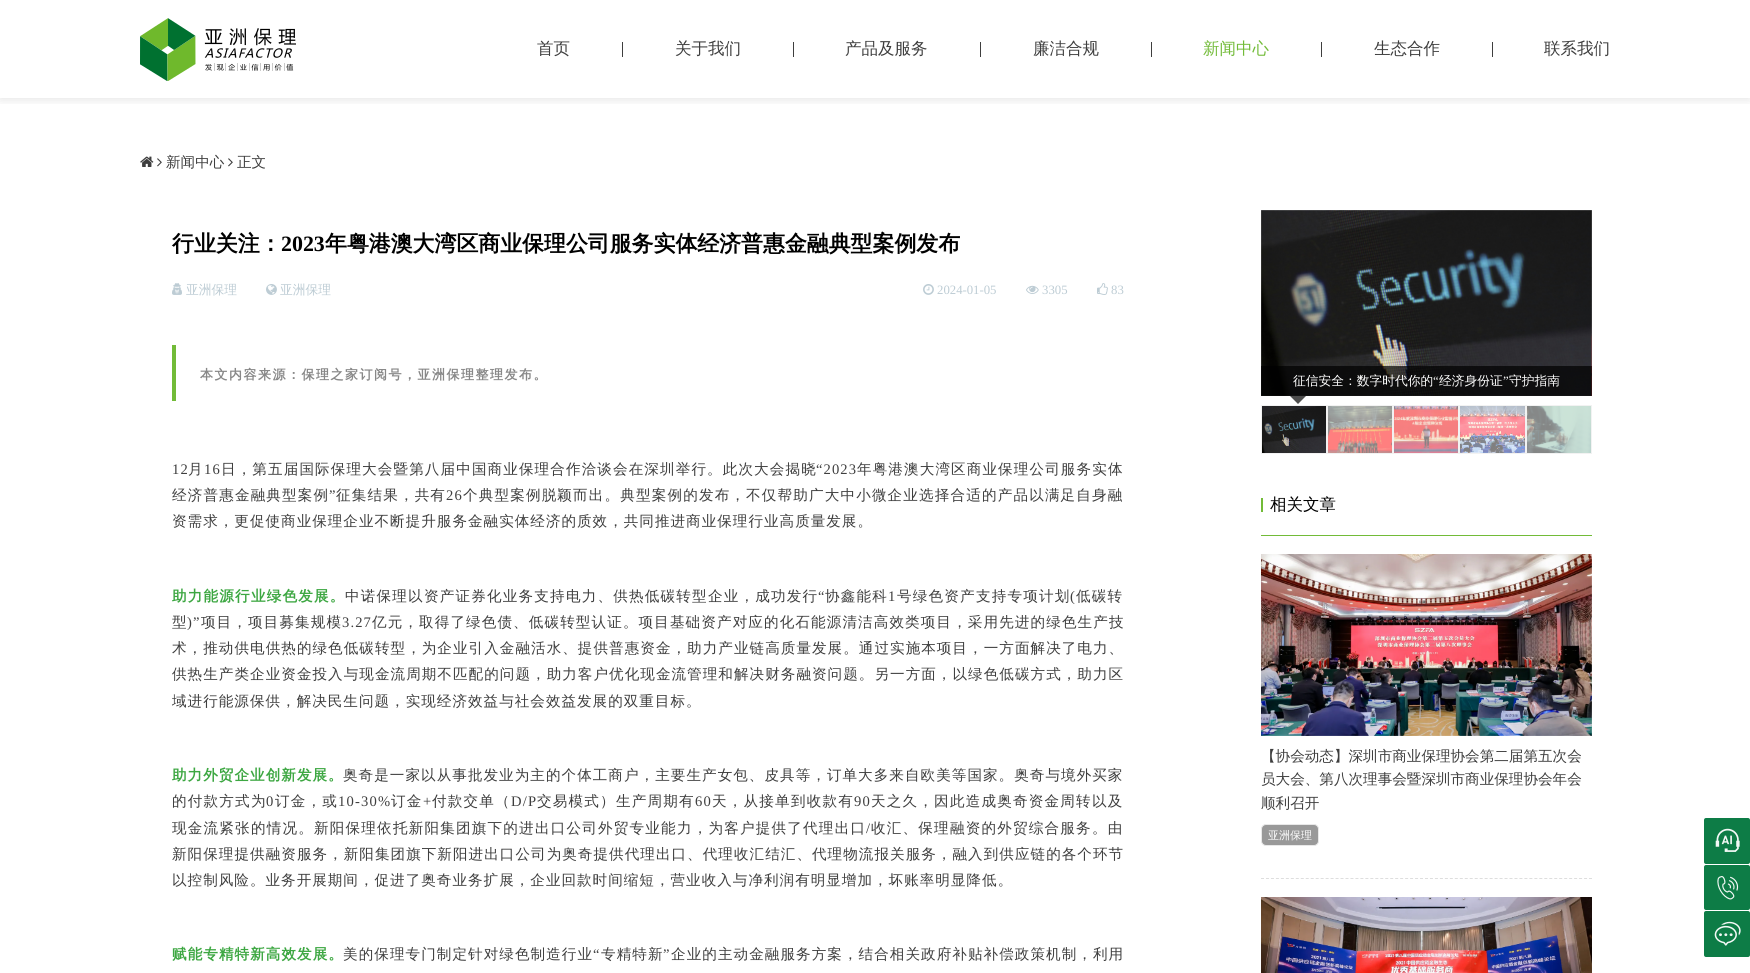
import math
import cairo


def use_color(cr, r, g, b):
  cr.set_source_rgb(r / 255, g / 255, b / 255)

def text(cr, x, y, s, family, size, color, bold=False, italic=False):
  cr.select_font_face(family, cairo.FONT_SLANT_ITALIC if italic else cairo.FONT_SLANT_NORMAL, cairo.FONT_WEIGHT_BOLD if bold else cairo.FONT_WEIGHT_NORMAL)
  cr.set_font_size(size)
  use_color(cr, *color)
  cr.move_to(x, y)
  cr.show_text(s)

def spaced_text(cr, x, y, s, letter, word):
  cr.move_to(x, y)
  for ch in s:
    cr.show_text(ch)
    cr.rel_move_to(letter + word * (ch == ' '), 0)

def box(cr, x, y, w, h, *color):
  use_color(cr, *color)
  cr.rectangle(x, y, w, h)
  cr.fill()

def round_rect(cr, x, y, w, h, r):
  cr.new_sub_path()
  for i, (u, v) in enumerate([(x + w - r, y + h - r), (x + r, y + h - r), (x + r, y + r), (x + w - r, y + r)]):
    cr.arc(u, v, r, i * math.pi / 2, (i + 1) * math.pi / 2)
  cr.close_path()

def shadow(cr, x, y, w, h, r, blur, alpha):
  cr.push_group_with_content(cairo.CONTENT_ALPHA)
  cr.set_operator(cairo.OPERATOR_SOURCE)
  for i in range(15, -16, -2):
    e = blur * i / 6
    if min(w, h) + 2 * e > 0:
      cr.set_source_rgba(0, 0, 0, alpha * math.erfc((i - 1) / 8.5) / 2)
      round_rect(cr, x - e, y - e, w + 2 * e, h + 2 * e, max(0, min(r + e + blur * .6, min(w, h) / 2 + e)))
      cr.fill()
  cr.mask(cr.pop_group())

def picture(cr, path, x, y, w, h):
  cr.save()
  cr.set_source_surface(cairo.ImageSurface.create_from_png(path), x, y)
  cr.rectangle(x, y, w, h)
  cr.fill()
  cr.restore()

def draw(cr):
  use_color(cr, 255, 255, 255)
  cr.paint()
  cr.save()
  cr.rectangle(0, 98, 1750, 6)
  cr.clip()
  use_color(cr, 0, 0, 0)
  shadow(cr, 0, 2, 1750, 98, 0, 5, 0.1)
  cr.restore()
  picture(cr, "img_01.png", 140, 18, 156, 63)
  box(cr, 622, 42, 1, 15, 62, 62, 62)
  box(cr, 793, 42, 1, 15, 62, 62, 62)
  box(cr, 980, 42, 1, 15, 62, 62, 62)
  box(cr, 1151, 42, 1, 15, 62, 62, 62)
  box(cr, 1321, 42, 1, 15, 62, 62, 62)
  box(cr, 1492, 42, 1, 15, 62, 62, 62)
  picture(cr, "img_02.png", 140, 156, 14, 11)
  picture(cr, "img_03.png", 157, 158, 5, 9)
  picture(cr, "img_03.png", 228, 158, 5, 9)
  picture(cr, "img_04.png", 172, 283, 10, 12)
  picture(cr, "img_05.png", 266, 284, 11, 11)
  picture(cr, "img_06.png", 923, 284, 11, 11)
  picture(cr, "img_07.png", 1026, 285, 13, 9)
  picture(cr, "img_08.png", 1097, 283, 11, 12)
  box(cr, 172, 345, 4, 56, 114, 187, 56)
  picture(cr, "img_09.png", 1261, 210, 331, 186)
  cr.set_source_rgba(0, 0, 0, 0.7)
  cr.rectangle(1261, 366, 331, 30)
  cr.fill()
  picture(cr, "img_10.png", 1591, 267, 1, 129)
  cr.rectangle(1261.5, 405.5, 65, 48)
  use_color(cr, 242, 242, 242)
  cr.set_line_width(1)
  cr.stroke()
  use_color(cr, 77, 77, 77)
  cr.new_path()
  cr.move_to(1290, 396)
  cr.line_to(1306, 396)
  cr.line_to(1298, 404)
  cr.close_path()
  cr.fill()
  picture(cr, "img_11.png", 1262, 406, 64, 47)
  cr.rectangle(1327.5, 405.5, 65, 48)
  use_color(cr, 242, 242, 242)
  cr.stroke()
  picture(cr, "img_12.png", 1328, 406, 64, 47)
  cr.rectangle(1393.5, 405.5, 65, 48)
  cr.stroke()
  picture(cr, "img_13.png", 1394, 406, 64, 47)
  cr.rectangle(1459.5, 405.5, 66, 48)
  cr.stroke()
  picture(cr, "img_14.png", 1460, 406, 65, 47)
  cr.rectangle(1526.5, 405.5, 65, 48)
  cr.stroke()
  picture(cr, "img_15.png", 1527, 406, 64, 47)
  box(cr, 1261, 535, 331, 1, 114, 187, 56)
  box(cr, 1261, 498, 2, 14, 114, 187, 56)
  cr.new_path()
  cr.move_to(1261, 878.5)
  cr.line_to(1592, 878.5)
  use_color(cr, 222, 222, 222)
  cr.set_dash([3, 1.97])
  cr.stroke()
  picture(cr, "img_16.png", 1261, 554, 331, 182)
  use_color(cr, 153, 153, 153)
  round_rect(cr, 1261.5, 824.5, 57, 21, 4.5)
  cr.fill_preserve()
  use_color(cr, 232, 232, 232)
  cr.set_dash([])
  cr.stroke()
  picture(cr, "img_17.png", 1261, 897, 331, 76)
  use_color(cr, 13, 124, 70)
  round_rect(cr, 1704, 818, 46, 46, 2)
  cr.fill()
  picture(cr, "img_18.png", 1715, 828, 25, 24)
  round_rect(cr, 1704, 865, 46, 45, 2)
  cr.fill()
  picture(cr, "img_19.png", 1717, 876, 22, 24)
  round_rect(cr, 1704, 911, 46, 46, 2)
  cr.fill()
  picture(cr, "img_20.png", 1714, 921, 27, 25)
  text(cr, 537, 54, "首页", "WenQuanYi Zen Hei Medium", 16.5, (62, 62, 62))
  text(cr, 675, 54, "关于我们", "WenQuanYi Zen Hei Medium", 16.5, (62, 62, 62))
  text(cr, 845, 54, "产品及服务", "WenQuanYi Zen Hei Medium", 16.5, (62, 62, 62))
  text(cr, 1033, 54, "廉洁合规", "WenQuanYi Zen Hei Medium", 16.5, (62, 62, 62))
  text(cr, 1203, 54, "新闻中心", "WenQuanYi Zen Hei Medium", 16.5, (114, 187, 56))
  text(cr, 1374, 54, "生态合作", "WenQuanYi Zen Hei Medium", 16.5, (62, 62, 62))
  text(cr, 1544, 54, "联系我们", "WenQuanYi Zen Hei Medium", 16.5, (62, 62, 62))
  text(cr, 166, 167, "新闻中心", "WenQuanYi Zen Hei Medium", 14.58, (62, 62, 62))
  text(cr, 237, 167, "正文", "WenQuanYi Zen Hei Medium", 14.58, (62, 62, 62))
  text(cr, 172, 251, "行业关注：", "WenQuanYi Zen Hei", 21.9, (0, 0, 0), bold=True)
  text(cr, 281, 251, "2023", "Liberation Serif", 21.9, (0, 0, 0), bold=True)
  text(cr, 325, 251, "年粤港澳大湾区商业保理公司服务实体经济普惠金融典型案例发布", "WenQuanYi Zen Hei", 21.9, (0, 0, 0), bold=True)
  text(cr, 186, 294, "亚洲保理", "WenQuanYi Zen Hei Medium", 12.75, (189, 204, 212))
  text(cr, 280, 294, "亚洲保理", "WenQuanYi Zen Hei Medium", 12.75, (189, 204, 212))
  text(cr, 937, 294, "2024-01-05", "Liberation Serif", 12.75, (189, 204, 212))
  text(cr, 1042, 294, "3305", "Liberation Serif", 12.75, (189, 204, 212))
  text(cr, 1111, 294, "83", "Liberation Serif", 12.75, (189, 204, 212))
  cr.select_font_face("WenQuanYi Zen Hei", cairo.FONT_SLANT_NORMAL, cairo.FONT_WEIGHT_BOLD)
  cr.set_font_size(13)
  use_color(cr, 136, 136, 136)
  spaced_text(cr, 200, 379, "本文内容来源：保理之家订阅号，亚洲保理整理发布。", 1.5, 0)
  cr.select_font_face("Liberation Serif")
  cr.set_font_size(14.58)
  use_color(cr, 62, 62, 62)
  spaced_text(cr, 172, 474, "12", 1.1, 0)
  cr.select_font_face("WenQuanYi Zen Hei Medium")
  spaced_text(cr, 188, 474, "月", 1.1, 0)
  cr.select_font_face("Liberation Serif")
  spaced_text(cr, 204, 474, "16", 1.1, 0)
  cr.select_font_face("WenQuanYi Zen Hei Medium")
  spaced_text(cr, 221, 474, "日，第五届国际保理大会暨第八届中国商业保理合作洽谈会在深圳举行。此次大会揭晓", 1.1, 0)
  cr.select_font_face("Liberation Serif")
  spaced_text(cr, 816, 474, "“2023", 1.1, 0)
  cr.select_font_face("WenQuanYi Zen Hei Medium")
  spaced_text(cr, 857, 474, "年粤港澳大湾区商业保理公司服务实体", 1.1, 0)
  spaced_text(cr, 172, 500, "经济普惠金融典型案例", 1.15, 0)
  cr.select_font_face("Liberation Serif")
  spaced_text(cr, 329, 500, "”", 1.15, 0)
  cr.select_font_face("WenQuanYi Zen Hei Medium")
  spaced_text(cr, 336, 500, "征集结果，共有", 1.15, 0)
  cr.select_font_face("Liberation Serif")
  spaced_text(cr, 446, 500, "26", 1.15, 0)
  cr.select_font_face("WenQuanYi Zen Hei Medium")
  spaced_text(cr, 463, 500, "个典型案例脱颖而出。典型案例的发布，不仅帮助广大中小微企业选择合适的产品以满足自身融", 1.15, 0)
  spaced_text(cr, 172, 526, "资需求，更促使商业保理企业不断提升服务金融实体经济的质效，共同推进商业保理行业高质量发展。", 1, 0)
  cr.select_font_face("WenQuanYi Zen Hei", cairo.FONT_SLANT_NORMAL, cairo.FONT_WEIGHT_BOLD)
  use_color(cr, 61, 167, 66)
  spaced_text(cr, 172, 601, "助力能源行业绿色发展。", 1.2, 0)
  cr.select_font_face("WenQuanYi Zen Hei Medium")
  use_color(cr, 62, 62, 62)
  spaced_text(cr, 345, 601, "中诺保理以资产证券化业务支持电力、供热低碳转型企业，成功发行", 1.2, 0)
  cr.select_font_face("Liberation Serif")
  spaced_text(cr, 818, 601, "“", 1.2, 0)
  cr.select_font_face("WenQuanYi Zen Hei Medium")
  spaced_text(cr, 825, 601, "协鑫能科", 1.2, 0)
  cr.select_font_face("Liberation Serif")
  spaced_text(cr, 888, 601, "1", 1.2, 0)
  cr.select_font_face("WenQuanYi Zen Hei Medium")
  spaced_text(cr, 897, 601, "号绿色资产支持专项计划", 1.2, 0)
  cr.select_font_face("Liberation Serif")
  spaced_text(cr, 1070, 601, "(", 1.2, 0)
  cr.select_font_face("WenQuanYi Zen Hei Medium")
  spaced_text(cr, 1076, 601, "低碳转", 1.2, 0)
  spaced_text(cr, 172, 627, "型", 1.1, 0)
  cr.select_font_face("Liberation Serif")
  spaced_text(cr, 187, 627, ")”", 1.1, 0)
  cr.select_font_face("WenQuanYi Zen Hei Medium")
  spaced_text(cr, 201, 627, "项目，项目募集规模", 1.1, 0)
  cr.select_font_face("Liberation Serif")
  spaced_text(cr, 342, 627, "3.27", 1.1, 0)
  cr.select_font_face("WenQuanYi Zen Hei Medium")
  spaced_text(cr, 372, 627, "亿元，取得了绿色债、低碳转型认证。项目基础资产对应的化石能源清洁高效类项目，采用先进的绿色生产技", 1.1, 0)
  spaced_text(cr, 172, 653, "术，推动供电供热的绿色低碳转型，为企业引入金融活水、提供普惠资金，助力产业链高质量发展。通过实施本项目，一方面解决了电力、", 1.03, 0)
  spaced_text(cr, 172, 679, "供热生产类企业资金投入与现金流周期不匹配的问题，助力客户优化现金流管理和解决财务融资问题。另一方面，以绿色低碳方式，助力区", 1.03, 0)
  spaced_text(cr, 172, 706, "域进行能源保供，解决民生问题，实现经济效益与社会效益发展的双重目标。", 1, 0)
  cr.select_font_face("WenQuanYi Zen Hei", cairo.FONT_SLANT_NORMAL, cairo.FONT_WEIGHT_BOLD)
  use_color(cr, 61, 167, 66)
  spaced_text(cr, 172, 780, "助力外贸企业创新发展。", 1.03, 0)
  cr.select_font_face("WenQuanYi Zen Hei Medium")
  use_color(cr, 62, 62, 62)
  spaced_text(cr, 343, 780, "奥奇是一家以从事批发业为主的个体工商户，主要生产女包、皮具等，订单大多来自欧美等国家。奥奇与境外买家", 1.03, 0)
  spaced_text(cr, 172, 806, "的付款方式为", 1.2, 0)
  cr.select_font_face("Liberation Serif")
  spaced_text(cr, 266, 806, "0", 1.2, 0)
  cr.select_font_face("WenQuanYi Zen Hei Medium")
  spaced_text(cr, 275, 806, "订金，或", 1.2, 0)
  cr.select_font_face("Liberation Serif")
  spaced_text(cr, 338, 806, "10-30%", 1.2, 0)
  cr.select_font_face("WenQuanYi Zen Hei Medium")
  spaced_text(cr, 391, 806, "订金", 1.2, 0)
  cr.select_font_face("Liberation Serif")
  spaced_text(cr, 423, 806, "+", 1.2, 0)
  cr.select_font_face("WenQuanYi Zen Hei Medium")
  spaced_text(cr, 432, 806, "付款交单（", 1.2, 0)
  cr.select_font_face("Liberation Serif")
  spaced_text(cr, 511, 806, "D/P", 1.2, 0)
  cr.select_font_face("WenQuanYi Zen Hei Medium")
  spaced_text(cr, 537, 806, "交易模式）生产周期有", 1.2, 0)
  cr.select_font_face("Liberation Serif")
  spaced_text(cr, 695, 806, "60", 1.2, 0)
  cr.select_font_face("WenQuanYi Zen Hei Medium")
  spaced_text(cr, 712, 806, "天，从接单到收款有", 1.2, 0)
  cr.select_font_face("Liberation Serif")
  spaced_text(cr, 854, 806, "90", 1.2, 0)
  cr.select_font_face("WenQuanYi Zen Hei Medium")
  spaced_text(cr, 871, 806, "天之久，因此造成奥奇资金周转以及", 1.2, 0)
  spaced_text(cr, 172, 833, "现金流紧张的情况。新阳保理依托新阳集团旗下的进出口公司外贸专业能力，为客户提供了代理出口", 1.2, 0)
  cr.select_font_face("Liberation Serif")
  spaced_text(cr, 866, 833, "/", 1.2, 0)
  cr.select_font_face("WenQuanYi Zen Hei Medium")
  spaced_text(cr, 871, 833, "收汇、保理融资的外贸综合服务。由", 1.2, 0)
  spaced_text(cr, 172, 859, "新阳保理提供融资服务，新阳集团旗下新阳进出口公司为奥奇提供代理出口、代理收汇结汇、代理物流报关服务，融入到供应链的各个环节", 1.03, 0)
  spaced_text(cr, 172, 885, "以控制风险。业务开展期间，促进了奥奇业务扩展，企业回款时间缩短，营业收入与净利润有明显增加，坏账率明显降低。", 1, 0)
  cr.select_font_face("WenQuanYi Zen Hei", cairo.FONT_SLANT_NORMAL, cairo.FONT_WEIGHT_BOLD)
  use_color(cr, 61, 167, 66)
  spaced_text(cr, 172, 959, "赋能专精特新高效发展。", 1.05, 0)
  cr.select_font_face("WenQuanYi Zen Hei Medium")
  use_color(cr, 62, 62, 62)
  spaced_text(cr, 343, 959, "美的保理专门制定针对绿色制造行业", 1.05, 0)
  cr.select_font_face("Liberation Serif")
  spaced_text(cr, 593, 959, "“", 1.05, 0)
  cr.select_font_face("WenQuanYi Zen Hei Medium")
  spaced_text(cr, 601, 959, "专精特新", 1.05, 0)
  cr.select_font_face("Liberation Serif")
  spaced_text(cr, 663, 959, "”", 1.05, 0)
  cr.select_font_face("WenQuanYi Zen Hei Medium")
  spaced_text(cr, 671, 959, "企业的主动金融服务方案，结合相关政府补贴补偿政策机制，利用", 1.05, 0)
  text(cr, 1293, 385, "征信安全：数字时代你的", "WenQuanYi Zen Hei Medium", 12.75, (255, 255, 255))
  text(cr, 1433, 385, "“", "Liberation Serif", 12.75, (255, 255, 255))
  text(cr, 1439, 385, "经济身份证", "WenQuanYi Zen Hei Medium", 12.75, (255, 255, 255))
  text(cr, 1503, 385, "”", "Liberation Serif", 12.75, (255, 255, 255))
  text(cr, 1509, 385, "守护指南", "WenQuanYi Zen Hei Medium", 12.75, (255, 255, 255))
  text(cr, 1270, 510, "相关文章", "WenQuanYi Zen Hei Medium", 16.5, (0, 0, 0))
  text(cr, 1261, 761, "【协会动态】深圳市商业保理协会第二届第五次会", "WenQuanYi Zen Hei Medium", 14.58, (62, 62, 62))
  text(cr, 1261, 784, "员大会、第八次理事会暨深圳市商业保理协会年会", "WenQuanYi Zen Hei Medium", 14.58, (62, 62, 62))
  text(cr, 1261, 808, "顺利召开", "WenQuanYi Zen Hei Medium", 14.58, (62, 62, 62))
  text(cr, 1268, 839, "亚洲保理", "WenQuanYi Zen Hei Medium", 11, (255, 255, 255))


surface = cairo.ImageSurface(cairo.FORMAT_RGB24, 1750, 973)
cr = cairo.Context(surface)
options = cairo.FontOptions()
options.set_hint_metrics(cairo.HINT_METRICS_OFF)
options.set_hint_style(cairo.HINT_STYLE_NONE)
cr.set_font_options(options)
cr.set_miter_limit(4)
draw(cr)
surface.write_to_png("out.png")
